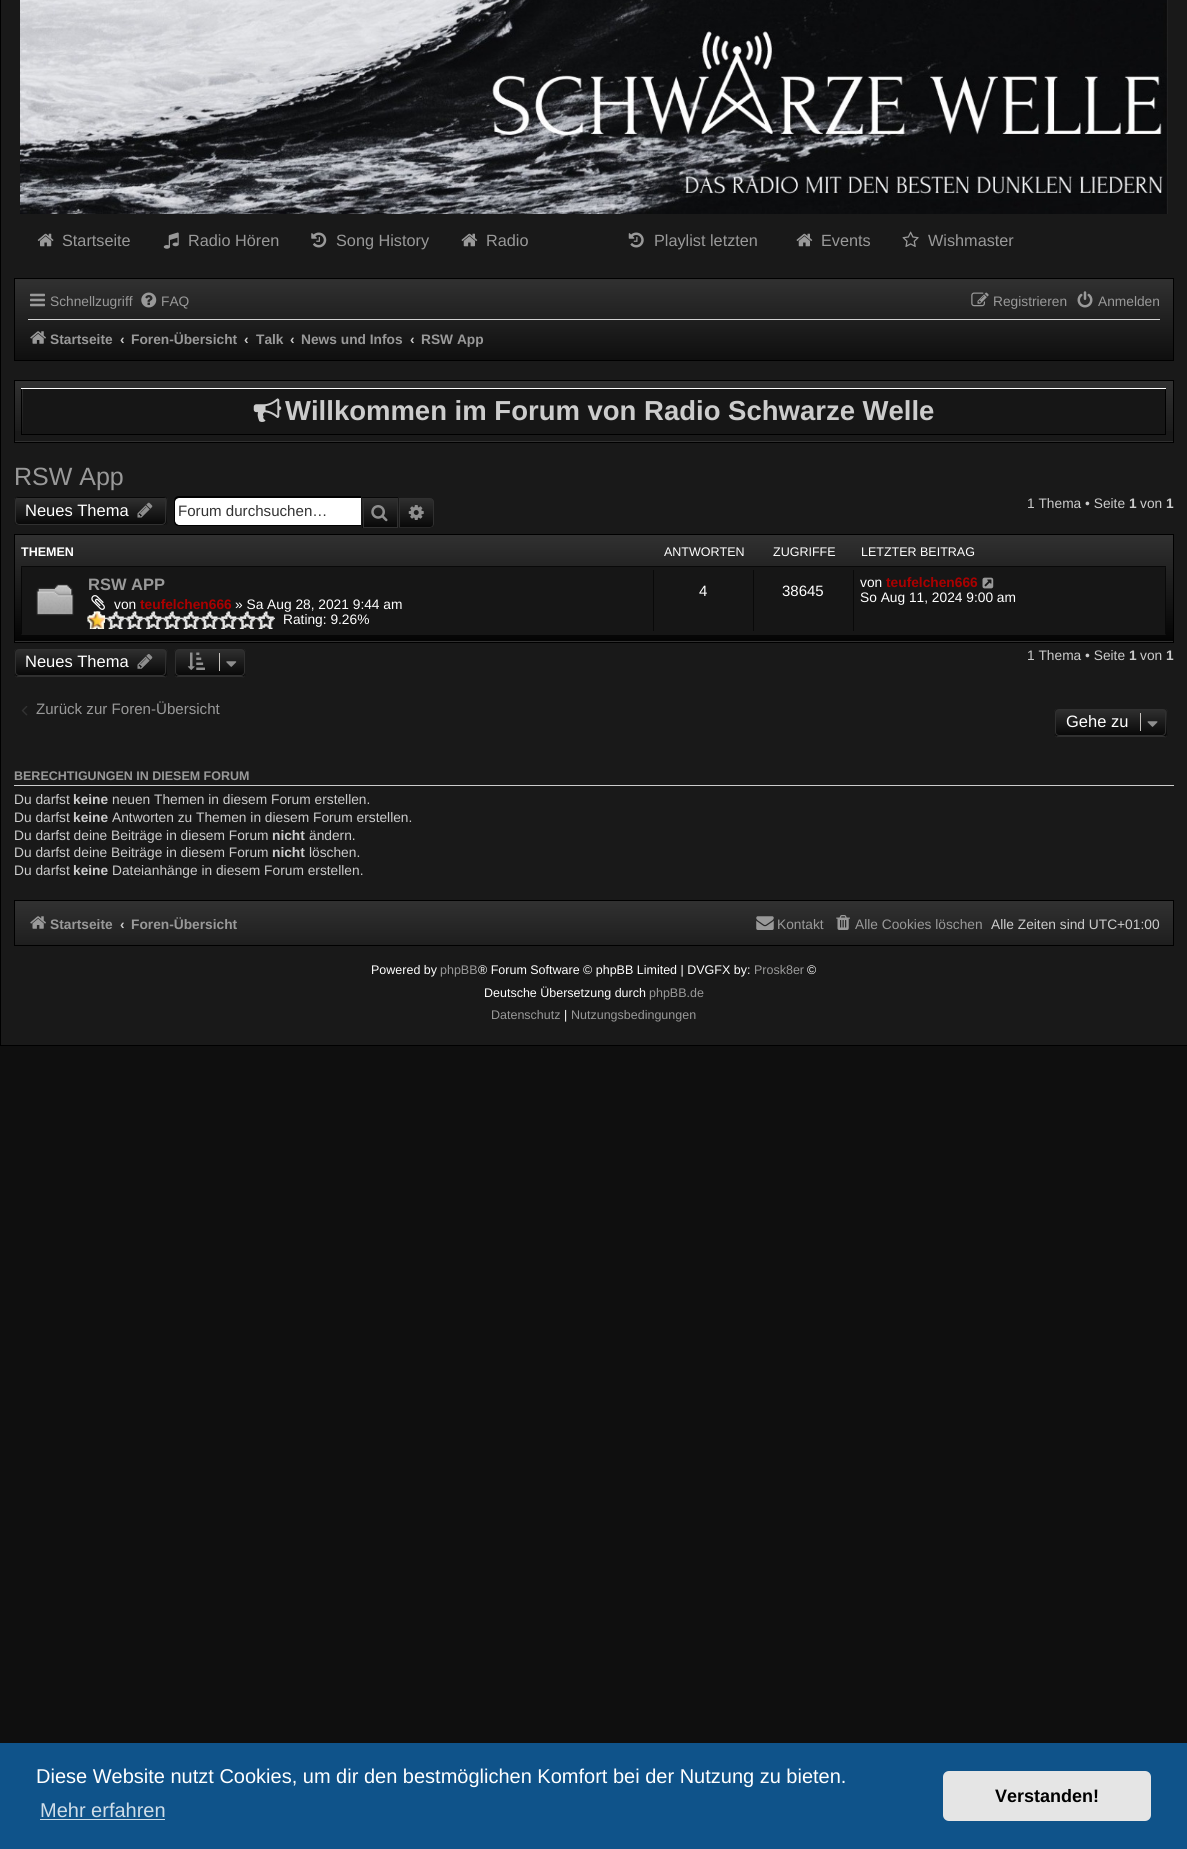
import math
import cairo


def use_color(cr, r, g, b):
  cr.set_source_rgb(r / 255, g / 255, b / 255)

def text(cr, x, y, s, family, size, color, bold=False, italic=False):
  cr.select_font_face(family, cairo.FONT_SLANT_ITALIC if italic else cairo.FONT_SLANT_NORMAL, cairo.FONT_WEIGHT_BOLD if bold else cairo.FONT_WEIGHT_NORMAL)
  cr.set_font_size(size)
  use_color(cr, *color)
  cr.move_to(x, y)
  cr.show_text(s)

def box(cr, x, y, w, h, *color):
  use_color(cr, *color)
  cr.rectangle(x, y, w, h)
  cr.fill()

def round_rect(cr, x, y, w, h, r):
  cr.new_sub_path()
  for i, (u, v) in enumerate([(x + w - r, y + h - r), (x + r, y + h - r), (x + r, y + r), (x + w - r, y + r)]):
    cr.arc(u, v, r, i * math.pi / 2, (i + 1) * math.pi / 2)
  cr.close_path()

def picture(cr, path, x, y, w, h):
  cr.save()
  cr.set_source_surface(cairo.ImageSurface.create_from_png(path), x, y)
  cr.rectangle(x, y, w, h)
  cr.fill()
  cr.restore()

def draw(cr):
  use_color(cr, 15, 15, 15)
  cr.paint()
  use_color(cr, 25, 25, 25)
  cr.rectangle(0.5, -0.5, 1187, 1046)
  cr.fill_preserve()
  use_color(cr, 0, 0, 0)
  cr.set_line_width(1)
  cr.stroke()
  picture(cr, "img_01.png", 20, 0, 1148, 214)
  picture(cr, "img_02.png", 37, 233, 17, 14)
  picture(cr, "img_03.png", 163, 232, 16, 17)
  picture(cr, "img_04.png", 311, 232, 16, 16)
  picture(cr, "img_05.png", 461, 233, 17, 14)
  picture(cr, "img_06.png", 628, 232, 16, 16)
  picture(cr, "img_05.png", 796, 233, 17, 14)
  picture(cr, "img_07.png", 902, 231, 17, 16)
  gradient = cairo.LinearGradient(594, 279, 594, 394)
  gradient.add_color_stop_rgba(0, 0.188, 0.188, 0.188, 1)
  gradient.add_color_stop_rgba(0.02, 0.188, 0.188, 0.188, 1)
  gradient.add_color_stop_rgba(1, 0, 0, 0, 1)
  cr.set_source(gradient)
  cr.rectangle(15, 279, 1158, 81)
  cr.fill()
  cr.rectangle(14.5, 278.5, 1159, 82)
  use_color(cr, 0, 0, 0)
  cr.stroke()
  picture(cr, "img_08.png", 30, 293, 15, 14)
  picture(cr, "img_09.png", 141, 292, 16, 16)
  picture(cr, "img_10.png", 971, 292, 18, 15)
  picture(cr, "img_11.png", 1077, 291, 16, 17)
  box(cr, 28, 319, 1132, 1, 210, 210, 210)
  picture(cr, "img_12.png", 30, 331, 16, 13)
  box(cr, 15, 441, 1158, 1, 48, 48, 48)
  gradient = cairo.LinearGradient(594, 381, 594, 496)
  gradient.add_color_stop_rgba(0, 0.188, 0.188, 0.188, 1)
  gradient.add_color_stop_rgba(0.02, 0.188, 0.188, 0.188, 1)
  gradient.add_color_stop_rgba(1, 0, 0, 0, 1)
  cr.set_source(gradient)
  cr.rectangle(15, 381, 1158, 50)
  cr.fill()
  cr.rectangle(14.5, 380.5, 1159, 62)
  use_color(cr, 0, 0, 0)
  cr.stroke()
  box(cr, 23, 389, 1142, 45, 22, 22, 22)
  box(cr, 1165, 388, 1, 47, 0, 0, 0)
  box(cr, 21, 434, 1145, 1, 0, 0, 0)
  box(cr, 21, 388, 1, 47, 0, 0, 0)
  box(cr, 21, 388, 1145, 1, 255, 255, 255)
  picture(cr, "img_13.png", 253, 398, 29, 24)
  cr.save()
  round_rect(cr, 14, 496, 154, 30, 5)
  cr.clip()
  gradient = cairo.LinearGradient(91, 470, 91, 498)
  gradient.add_color_stop_rgba(0, 0.188, 0.188, 0.188, 1)
  gradient.add_color_stop_rgba(1, 0.027, 0.027, 0.027, 1)
  cr.set_source(gradient)
  cr.rectangle(14, 496, 154, 2)
  cr.fill()
  gradient = cairo.LinearGradient(91, 498, 91, 525)
  gradient.add_color_stop_rgba(0, 0.188, 0.188, 0.188, 1)
  gradient.add_color_stop_rgba(1, 0.027, 0.027, 0.027, 1)
  cr.set_source(gradient)
  cr.rectangle(14, 498, 154, 27)
  cr.fill()
  cr.restore()
  round_rect(cr, 15.5, 498.5, 150, 26, 3.5)
  use_color(cr, 48, 48, 48)
  cr.stroke()
  round_rect(cr, 14.5, 496.5, 153, 29, 4.5)
  use_color(cr, 25, 25, 25)
  cr.stroke()
  picture(cr, "img_14.png", 137, 502, 16, 16)
  use_color(cr, 255, 255, 255)
  cr.new_path()
  cr.move_to(179, 498)
  cr.line_to(361, 498)
  cr.line_to(361, 525)
  cr.line_to(179, 525)
  cr.curve_to(177, 525, 175, 523, 175, 521)
  cr.line_to(175, 502)
  cr.curve_to(175, 500, 177, 498, 179, 498)
  cr.close_path()
  cr.fill()
  use_color(cr, 0, 0, 0)
  cr.set_fill_rule(cairo.FILL_RULE_EVEN_ODD)
  cr.new_path()
  cr.move_to(179, 496)
  cr.line_to(361, 496)
  cr.line_to(361, 526)
  cr.line_to(179, 526)
  cr.curve_to(176, 526, 174, 524, 174, 521)
  cr.line_to(174, 501)
  cr.curve_to(174, 498, 176, 496, 179, 496)
  cr.close_path()
  cr.move_to(179, 498)
  cr.line_to(361, 498)
  cr.line_to(361, 525)
  cr.line_to(179, 525)
  cr.curve_to(177, 525, 175, 523, 175, 521)
  cr.line_to(175, 501)
  cr.curve_to(175, 499, 177, 498, 179, 498)
  cr.close_path()
  cr.fill()
  gradient = cairo.LinearGradient(380, 468, 380, 498)
  gradient.add_color_stop_rgba(0, 0.188, 0.188, 0.188, 1)
  gradient.add_color_stop_rgba(1, 0.027, 0.027, 0.027, 1)
  cr.set_source(gradient)
  cr.rectangle(361, 497, 38, 1)
  cr.fill()
  gradient = cairo.LinearGradient(380, 498, 380, 528)
  gradient.add_color_stop_rgba(0, 0.188, 0.188, 0.188, 1)
  gradient.add_color_stop_rgba(1, 0.027, 0.027, 0.027, 1)
  cr.set_source(gradient)
  cr.rectangle(362, 498, 35, 30)
  cr.fill()
  cr.rectangle(363.5, 498.5, 34, 29)
  use_color(cr, 48, 48, 48)
  cr.stroke()
  cr.rectangle(361.5, 496.5, 37, 32)
  use_color(cr, 25, 25, 25)
  cr.stroke()
  picture(cr, "img_15.png", 371, 505, 17, 17)
  gradient = cairo.LinearGradient(416, 498, 416, 528)
  gradient.add_color_stop_rgba(0, 0.188, 0.188, 0.188, 1)
  gradient.add_color_stop_rgba(1, 0.027, 0.027, 0.027, 1)
  cr.set_source(gradient)
  cr.new_path()
  cr.move_to(399.5, 498.5)
  cr.line_to(430, 498.5)
  cr.curve_to(432, 498.5, 433.5, 500, 433.5, 502)
  cr.line_to(433.5, 524)
  cr.curve_to(433.5, 526, 432, 527.5, 430, 527.5)
  cr.line_to(399.5, 527.5)
  cr.close_path()
  cr.fill_preserve()
  use_color(cr, 48, 48, 48)
  cr.stroke()
  use_color(cr, 25, 25, 25)
  cr.new_path()
  cr.move_to(399, 496)
  cr.line_to(430, 496)
  cr.curve_to(433, 496, 435, 498.5, 435, 501)
  cr.line_to(435, 524)
  cr.curve_to(435, 526.5, 433, 529, 430, 529)
  cr.line_to(399, 529)
  cr.close_path()
  cr.move_to(399, 497.5)
  cr.line_to(430, 497.5)
  cr.curve_to(432, 497.5, 434, 499, 434, 501)
  cr.line_to(434, 524)
  cr.curve_to(434, 526, 432, 527.5, 430, 527.5)
  cr.line_to(399, 527.5)
  cr.close_path()
  cr.fill()
  picture(cr, "img_16.png", 408, 505, 16, 15)
  box(cr, 15, 641, 1158, 1, 48, 48, 48)
  gradient = cairo.LinearGradient(594, 535, 594, 650)
  gradient.add_color_stop_rgba(0, 0.188, 0.188, 0.188, 1)
  gradient.add_color_stop_rgba(0.02, 0.188, 0.188, 0.188, 1)
  gradient.add_color_stop_rgba(1, 0, 0, 0, 1)
  cr.set_source(gradient)
  cr.rectangle(15, 535, 1158, 106)
  cr.fill()
  cr.rectangle(14.5, 534.5, 1159, 108)
  use_color(cr, 0, 0, 0)
  cr.stroke()
  box(cr, 21, 567, 1145, 68, 22, 22, 22)
  box(cr, 21, 566, 1145, 1, 9, 9, 9)
  cr.set_fill_rule(cairo.FILL_RULE_WINDING)
  cr.new_path()
  cr.move_to(1166, 566)
  cr.line_to(1166, 635)
  cr.line_to(1165, 634)
  cr.line_to(1165, 568)
  cr.close_path()
  cr.fill()
  use_color(cr, 7, 7, 7)
  cr.new_path()
  cr.move_to(21, 635)
  cr.line_to(21, 566)
  cr.line_to(22, 568)
  cr.line_to(22, 634)
  cr.close_path()
  cr.fill()
  picture(cr, "img_17.png", 36, 584, 38, 32)
  picture(cr, "img_18.png", 91, 595, 14, 15)
  box(cr, 653, 570, 1, 61, 9, 9, 9)
  box(cr, 753, 570, 1, 61, 9, 9, 9)
  box(cr, 853, 570, 1, 61, 9, 9, 9)
  picture(cr, "img_21.png", 982, 577, 12, 12)
  cr.save()
  round_rect(cr, 14, 648, 154, 30, 5)
  cr.clip()
  gradient = cairo.LinearGradient(91, 649, 91, 676)
  gradient.add_color_stop_rgba(0, 0.188, 0.188, 0.188, 1)
  gradient.add_color_stop_rgba(1, 0.027, 0.027, 0.027, 1)
  cr.set_source(gradient)
  cr.rectangle(14, 649, 154, 27)
  cr.fill()
  gradient = cairo.LinearGradient(91, 676, 91, 704)
  gradient.add_color_stop_rgba(0, 0.188, 0.188, 0.188, 1)
  gradient.add_color_stop_rgba(1, 0.027, 0.027, 0.027, 1)
  cr.set_source(gradient)
  cr.rectangle(14, 676, 154, 2)
  cr.fill()
  cr.restore()
  round_rect(cr, 15.5, 649.5, 150, 26, 3.5)
  use_color(cr, 48, 48, 48)
  cr.stroke()
  round_rect(cr, 14.5, 648.5, 153, 29, 4.5)
  use_color(cr, 25, 25, 25)
  cr.stroke()
  picture(cr, "img_22.png", 137, 654, 16, 15)
  cr.save()
  round_rect(cr, 174, 648, 72, 30, 5)
  cr.clip()
  gradient = cairo.LinearGradient(210, 649, 210, 676)
  gradient.add_color_stop_rgba(0, 0.188, 0.188, 0.188, 1)
  gradient.add_color_stop_rgba(1, 0.027, 0.027, 0.027, 1)
  cr.set_source(gradient)
  cr.rectangle(174, 649, 72, 27)
  cr.fill()
  gradient = cairo.LinearGradient(210, 676, 210, 704)
  gradient.add_color_stop_rgba(0, 0.188, 0.188, 0.188, 1)
  gradient.add_color_stop_rgba(1, 0.027, 0.027, 0.027, 1)
  cr.set_source(gradient)
  cr.rectangle(174, 676, 72, 2)
  cr.fill()
  cr.restore()
  round_rect(cr, 175.5, 649.5, 69, 26, 3.5)
  use_color(cr, 48, 48, 48)
  cr.stroke()
  round_rect(cr, 174.5, 648.5, 71, 29, 4.5)
  use_color(cr, 25, 25, 25)
  cr.stroke()
  picture(cr, "img_23.png", 187, 652, 18, 18)
  box(cr, 219, 653, 1, 18, 199, 195, 191)
  picture(cr, "img_24.png", 226, 661, 11, 6)
  picture(cr, "img_25.png", 21, 706, 7, 10)
  cr.save()
  round_rect(cr, 1054, 708, 114, 30, 5)
  cr.clip()
  gradient = cairo.LinearGradient(1111, 709, 1111, 736)
  gradient.add_color_stop_rgba(0, 0.188, 0.188, 0.188, 1)
  gradient.add_color_stop_rgba(1, 0.027, 0.027, 0.027, 1)
  cr.set_source(gradient)
  cr.rectangle(1054, 709, 114, 27)
  cr.fill()
  gradient = cairo.LinearGradient(1111, 736, 1111, 764)
  gradient.add_color_stop_rgba(0, 0.188, 0.188, 0.188, 1)
  gradient.add_color_stop_rgba(1, 0.027, 0.027, 0.027, 1)
  cr.set_source(gradient)
  cr.rectangle(1054, 736, 114, 2)
  cr.fill()
  cr.restore()
  round_rect(cr, 1055.5, 709.5, 110, 26, 3.5)
  use_color(cr, 48, 48, 48)
  cr.stroke()
  round_rect(cr, 1054.5, 708.5, 113, 29, 4.5)
  use_color(cr, 25, 25, 25)
  cr.stroke()
  box(cr, 1140, 713, 1, 18, 199, 195, 191)
  picture(cr, "img_26.png", 1147, 721, 11, 6)
  box(cr, 14, 785, 1160, 1, 204, 204, 204)
  gradient = cairo.LinearGradient(594, 901, 594, 1016)
  gradient.add_color_stop_rgba(0, 0.188, 0.188, 0.188, 1)
  gradient.add_color_stop_rgba(0.02, 0.188, 0.188, 0.188, 1)
  gradient.add_color_stop_rgba(1, 0, 0, 0, 1)
  cr.set_source(gradient)
  cr.rectangle(15, 901, 1158, 44)
  cr.fill()
  cr.rectangle(14.5, 900.5, 1159, 45)
  use_color(cr, 0, 0, 0)
  cr.stroke()
  picture(cr, "img_27.png", 30, 916, 16, 13)
  picture(cr, "img_28.png", 756, 916, 18, 14)
  picture(cr, "img_29.png", 836, 915, 14, 15)
  box(cr, 0, 1743, 1187, 106, 15, 83, 138)
  box(cr, 40, 1819, 125, 1, 207, 221, 232)
  use_color(cr, 229, 229, 229)
  round_rect(cr, 943, 1771, 208, 50, 6)
  cr.fill()
  text(cr, 62, 246, "Startseite", "Liberation Sans", 16.25, (153, 153, 153))
  text(cr, 188, 246, "Radio Hören", "Liberation Sans", 16.25, (153, 153, 153))
  text(cr, 336, 246, "Song History", "Liberation Sans", 16.25, (153, 153, 153))
  text(cr, 486, 246, "Radio", "Liberation Sans", 16.25, (153, 153, 153))
  text(cr, 654, 246, "Playlist letzten", "Liberation Sans", 16.25, (153, 153, 153))
  text(cr, 821, 246, "Events", "Liberation Sans", 16.25, (153, 153, 153))
  text(cr, 928, 246, "Wishmaster", "Liberation Sans", 16.25, (153, 153, 153))
  text(cr, 50, 306, "Schnellzugriff", "Liberation Sans", 13.75, (153, 153, 153))
  text(cr, 161, 306, "FAQ", "Liberation Sans", 13.75, (153, 153, 153))
  text(cr, 993, 306, "Registrieren", "Liberation Sans", 13.75, (153, 153, 153))
  text(cr, 1098, 306, "Anmelden", "Liberation Sans", 13.75, (153, 153, 153))
  text(cr, 50, 344, "Startseite", "Liberation Sans", 13.75, (153, 153, 153), bold=True)
  text(cr, 120, 344, "‹", "Liberation Sans", 13.75, (204, 204, 204), bold=True)
  text(cr, 131, 344, "Foren-Übersicht", "Liberation Sans", 13.75, (153, 153, 153), bold=True)
  text(cr, 244, 344, "‹", "Liberation Sans", 13.75, (204, 204, 204), bold=True)
  text(cr, 256, 344, "Talk", "Liberation Sans", 13.75, (153, 153, 153), bold=True)
  text(cr, 290, 344, "‹", "Liberation Sans", 13.75, (204, 204, 204), bold=True)
  text(cr, 301, 344, "News und Infos", "Liberation Sans", 13.75, (153, 153, 153), bold=True)
  text(cr, 410, 344, "‹", "Liberation Sans", 13.75, (204, 204, 204), bold=True)
  text(cr, 421, 344, "RSW App", "Liberation Sans", 13.75, (153, 153, 153), bold=True)
  text(cr, 285, 420, "Willkommen im Forum von Radio Schwarze Welle", "Liberation Sans", 27.5, (204, 204, 204), bold=True)
  text(cr, 14, 485, "RSW App", "Liberation Sans", 25, (153, 153, 153))
  text(cr, 25, 516, "Neues Thema", "Liberation Sans", 16.5, (255, 255, 255))
  text(cr, 178, 516, "Forum durchsuchen…", "Liberation Sans", 15.1, (51, 51, 51))
  text(cr, 1027, 508, "1 Thema • Seite", "Liberation Sans", 13.75, (204, 204, 204))
  text(cr, 1129, 508, "1", "Liberation Sans", 13.75, (204, 204, 204), bold=True)
  text(cr, 1140, 508, "von", "Liberation Sans", 13.75, (204, 204, 204))
  text(cr, 1166, 508, "1", "Liberation Sans", 13.75, (204, 204, 204), bold=True)
  text(cr, 21, 556, "THEMEN", "Liberation Sans", 12.5, (255, 255, 255), bold=True)
  text(cr, 664, 556, "ANTWORTEN", "Liberation Sans", 12.5, (255, 255, 255))
  text(cr, 773, 556, "ZUGRIFFE", "Liberation Sans", 12.5, (255, 255, 255))
  text(cr, 861, 556, "LETZTER BEITRAG", "Liberation Sans", 12.5, (255, 255, 255))
  text(cr, 88, 590, "RSW APP", "Liberation Sans", 16.5, (153, 153, 153), bold=True)
  text(cr, 114, 609, "von", "Liberation Sans", 13.75, (255, 255, 255))
  text(cr, 140, 609, "teufelchen666", "Liberation Sans", 13.75, (170, 0, 0), bold=True)
  text(cr, 235, 609, "» Sa Aug 28, 2021 9:44 am", "Liberation Sans", 13.75, (255, 255, 255))
  picture(cr, "img_19.png", 87, 611, 188, 18)
  picture(cr, "img_20.png", 87, 611, 18, 18)
  text(cr, 283, 624, "Rating: 9.26%", "Liberation Sans", 13.75, (255, 255, 255))
  text(cr, 699, 596, "4", "Liberation Sans", 15, (255, 255, 255))
  text(cr, 782, 596, "38645", "Liberation Sans", 15, (255, 255, 255))
  text(cr, 860, 587, "von", "Liberation Sans", 13.75, (255, 255, 255))
  text(cr, 886, 587, "teufelchen666", "Liberation Sans", 13.75, (170, 0, 0), bold=True)
  text(cr, 860, 602, "So Aug 11, 2024 9:00 am", "Liberation Sans", 13.75, (255, 255, 255))
  text(cr, 25, 667, "Neues Thema", "Liberation Sans", 16.5, (255, 255, 255))
  text(cr, 1027, 660, "1 Thema • Seite", "Liberation Sans", 13.75, (204, 204, 204))
  text(cr, 1129, 660, "1", "Liberation Sans", 13.75, (204, 204, 204), bold=True)
  text(cr, 1140, 660, "von", "Liberation Sans", 13.75, (204, 204, 204))
  text(cr, 1166, 660, "1", "Liberation Sans", 13.75, (204, 204, 204), bold=True)
  text(cr, 36, 714, "Zurück zur Foren-Übersicht", "Liberation Sans", 15.1, (153, 153, 153))
  text(cr, 1066, 727, "Gehe zu", "Liberation Sans", 16.5, (255, 255, 255))
  text(cr, 14, 780, "BERECHTIGUNGEN IN DIESEM FORUM", "Liberation Sans", 12.5, (153, 153, 153), bold=True)
  text(cr, 14, 804, "Du darfst", "Liberation Sans", 13.75, (204, 204, 204))
  text(cr, 73, 804, "keine", "Liberation Sans", 13.75, (204, 204, 204), bold=True)
  text(cr, 112, 804, "neuen Themen in diesem Forum erstellen.", "Liberation Sans", 13.75, (204, 204, 204))
  text(cr, 14, 822, "Du darfst", "Liberation Sans", 13.75, (204, 204, 204))
  text(cr, 73, 822, "keine", "Liberation Sans", 13.75, (204, 204, 204), bold=True)
  text(cr, 112, 822, "Antworten zu Themen in diesem Forum erstellen.", "Liberation Sans", 13.75, (204, 204, 204))
  text(cr, 14, 840, "Du darfst deine Beiträge in diesem Forum", "Liberation Sans", 13.75, (204, 204, 204))
  text(cr, 272, 840, "nicht", "Liberation Sans", 13.75, (204, 204, 204), bold=True)
  text(cr, 309, 840, "ändern.", "Liberation Sans", 13.75, (204, 204, 204))
  text(cr, 14, 857, "Du darfst deine Beiträge in diesem Forum", "Liberation Sans", 13.75, (204, 204, 204))
  text(cr, 272, 857, "nicht", "Liberation Sans", 13.75, (204, 204, 204), bold=True)
  text(cr, 309, 857, "löschen.", "Liberation Sans", 13.75, (204, 204, 204))
  text(cr, 14, 875, "Du darfst", "Liberation Sans", 13.75, (204, 204, 204))
  text(cr, 73, 875, "keine", "Liberation Sans", 13.75, (204, 204, 204), bold=True)
  text(cr, 112, 875, "Dateianhänge in diesem Forum erstellen.", "Liberation Sans", 13.75, (204, 204, 204))
  text(cr, 50, 929, "Startseite", "Liberation Sans", 13.75, (153, 153, 153), bold=True)
  text(cr, 120, 929, "‹", "Liberation Sans", 13.75, (204, 204, 204), bold=True)
  text(cr, 131, 929, "Foren-Übersicht", "Liberation Sans", 13.75, (153, 153, 153), bold=True)
  text(cr, 777, 929, "Kontakt", "Liberation Sans", 13.75, (153, 153, 153))
  text(cr, 855, 929, "Alle Cookies löschen", "Liberation Sans", 13.75, (153, 153, 153))
  text(cr, 991, 929, "Alle Zeiten sind UTC+01:00", "Liberation Sans", 13.75, (204, 204, 204))
  text(cr, 371, 974, "Powered by", "Liberation Sans", 12.5, (255, 255, 255))
  text(cr, 440, 974, "phpBB", "Liberation Sans", 12.5, (153, 153, 153))
  text(cr, 478, 974, "® Forum Software © phpBB Limited | DVGFX by:", "Liberation Sans", 12.5, (255, 255, 255))
  text(cr, 754, 974, "Prosk8er", "Liberation Sans", 12.5, (153, 153, 153))
  text(cr, 807, 974, "©", "Liberation Sans", 12.5, (255, 255, 255))
  text(cr, 484, 997, "Deutsche Übersetzung durch", "Liberation Sans", 12.5, (255, 255, 255))
  text(cr, 649, 997, "phpBB.de", "Liberation Sans", 12.5, (153, 153, 153))
  text(cr, 491, 1019, "Datenschutz", "Liberation Sans", 12.5, (153, 153, 153))
  text(cr, 564, 1019, "|", "Liberation Sans", 12.5, (255, 255, 255))
  text(cr, 571, 1019, "Nutzungsbedingungen", "Liberation Sans", 12.5, (153, 153, 153))
  text(cr, 36, 1783, "Diese Website nutzt Cookies, um dir den bestmöglichen Komfort bei der Nutzung zu bieten.", "Liberation Sans", 20, (255, 255, 255))
  text(cr, 40, 1817, "Mehr erfahren", "Liberation Sans", 20, (207, 221, 232))
  text(cr, 995, 1802, "Verstanden!", "Liberation Sans", 18, (0, 0, 0), bold=True)


surface = cairo.ImageSurface(cairo.FORMAT_RGB24, 1187, 1849)
cr = cairo.Context(surface)
options = cairo.FontOptions()
options.set_hint_metrics(cairo.HINT_METRICS_OFF)
options.set_hint_style(cairo.HINT_STYLE_NONE)
cr.set_font_options(options)
cr.set_miter_limit(4)
draw(cr)
surface.write_to_png("out.png")
